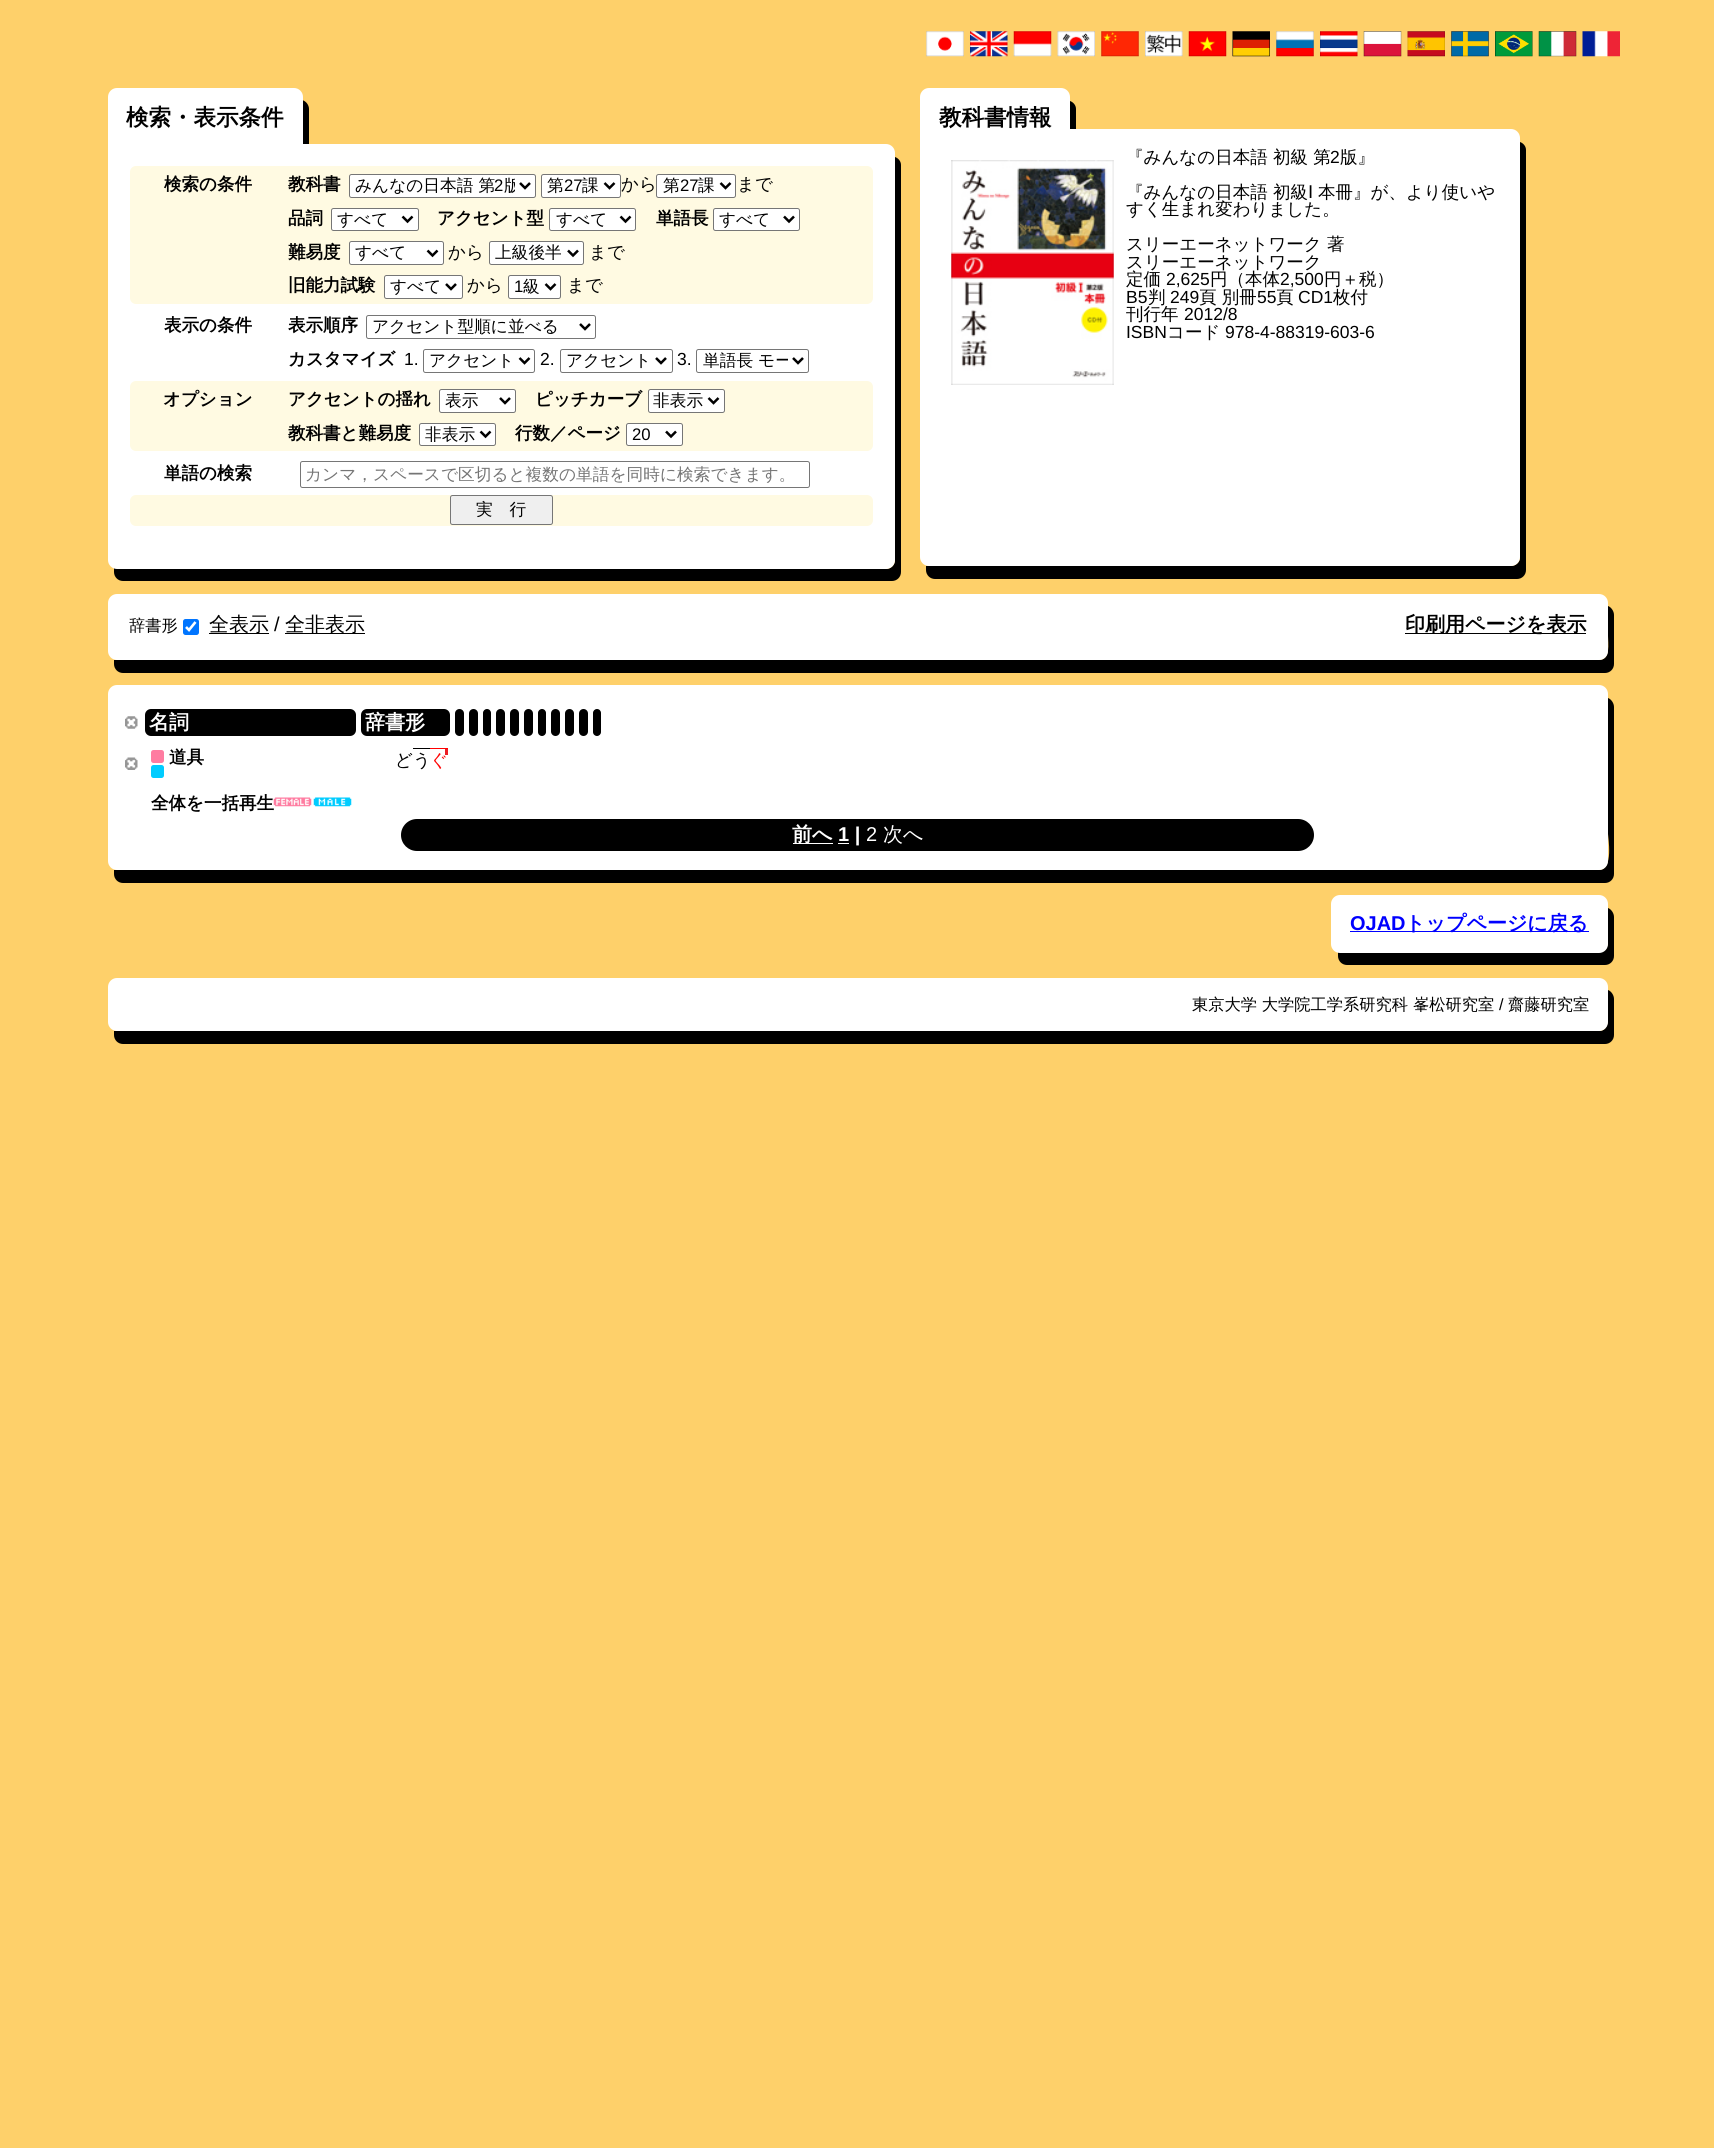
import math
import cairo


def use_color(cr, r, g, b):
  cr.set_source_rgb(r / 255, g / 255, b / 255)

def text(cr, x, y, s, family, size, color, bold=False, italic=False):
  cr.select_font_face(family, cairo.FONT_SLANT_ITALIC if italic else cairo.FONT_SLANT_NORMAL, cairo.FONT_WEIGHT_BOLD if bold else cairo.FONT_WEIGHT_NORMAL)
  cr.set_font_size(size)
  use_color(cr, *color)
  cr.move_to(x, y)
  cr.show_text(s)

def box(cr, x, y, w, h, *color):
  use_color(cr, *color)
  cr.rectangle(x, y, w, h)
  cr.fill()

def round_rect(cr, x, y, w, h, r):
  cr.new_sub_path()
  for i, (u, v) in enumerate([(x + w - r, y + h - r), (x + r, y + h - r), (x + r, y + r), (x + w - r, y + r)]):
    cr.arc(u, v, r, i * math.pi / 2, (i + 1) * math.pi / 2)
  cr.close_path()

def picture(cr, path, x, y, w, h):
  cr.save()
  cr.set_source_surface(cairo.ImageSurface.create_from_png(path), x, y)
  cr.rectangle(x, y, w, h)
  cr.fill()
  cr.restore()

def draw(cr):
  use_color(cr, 254, 208, 106)
  cr.paint()
  picture(cr, "img_01.png", 926, 31, 38, 26)
  picture(cr, "img_02.png", 970, 31, 38, 26)
  picture(cr, "img_03.png", 1013, 31, 39, 26)
  picture(cr, "img_04.png", 1057, 31, 38, 26)
  picture(cr, "img_05.png", 1101, 31, 38, 26)
  picture(cr, "img_06.png", 1145, 31, 38, 26)
  picture(cr, "img_07.png", 1188, 31, 39, 26)
  picture(cr, "img_08.png", 1232, 31, 38, 26)
  picture(cr, "img_09.png", 1276, 31, 38, 26)
  picture(cr, "img_10.png", 1320, 31, 38, 26)
  picture(cr, "img_11.png", 1363, 31, 39, 26)
  picture(cr, "img_12.png", 1407, 31, 38, 26)
  picture(cr, "img_13.png", 1451, 31, 38, 26)
  picture(cr, "img_14.png", 1495, 31, 38, 26)
  picture(cr, "img_15.png", 1538, 31, 39, 26)
  picture(cr, "img_16.png", 1582, 31, 38, 26)
  use_color(cr, 0, 0, 0)
  cr.new_path()
  cr.move_to(114, 162)
  cr.line_to(114, 166)
  cr.curve_to(114, 171, 118, 175, 123, 175)
  cr.line_to(300, 175)
  cr.curve_to(305, 175, 309, 171, 309, 166)
  cr.line_to(309, 109)
  cr.curve_to(309, 105, 306, 101, 302, 100)
  cr.line_to(302, 154)
  cr.curve_to(302, 159, 299, 162, 294, 162)
  cr.close_path()
  cr.fill()
  use_color(cr, 255, 255, 255)
  round_rect(cr, 108, 88, 195, 75, 9)
  cr.fill()
  use_color(cr, 0, 0, 0)
  cr.new_path()
  cr.move_to(114, 568)
  cr.line_to(114, 572)
  cr.curve_to(114, 577, 118, 581, 123, 581)
  cr.line_to(892, 581)
  cr.curve_to(897, 581, 901, 577, 901, 572)
  cr.line_to(901, 165)
  cr.curve_to(901, 161, 898, 158, 895, 157)
  cr.line_to(895, 560)
  cr.curve_to(895, 565, 891, 569, 886, 569)
  cr.close_path()
  cr.fill()
  use_color(cr, 255, 255, 255)
  round_rect(cr, 108, 144, 787, 425, 9)
  cr.fill()
  use_color(cr, 255, 250, 226)
  round_rect(cr, 130, 166, 743, 138, 6)
  cr.fill()
  use_color(cr, 255, 255, 255)
  round_rect(cr, 349.5, 174.5, 186, 23, 2)
  cr.fill_preserve()
  use_color(cr, 118, 118, 118)
  cr.set_line_width(1)
  cr.stroke()
  cr.new_path()
  cr.move_to(520, 183)
  cr.line_to(525, 188)
  cr.line_to(530, 183)
  use_color(cr, 0, 0, 0)
  cr.set_line_width(2.5)
  cr.stroke()
  use_color(cr, 255, 255, 255)
  round_rect(cr, 541.5, 174.5, 79, 23, 2)
  cr.fill_preserve()
  use_color(cr, 118, 118, 118)
  cr.set_line_width(1)
  cr.stroke()
  cr.new_path()
  cr.move_to(604.5, 183)
  cr.line_to(609.5, 188)
  cr.line_to(614.5, 183)
  use_color(cr, 0, 0, 0)
  cr.set_line_width(2.5)
  cr.stroke()
  use_color(cr, 255, 255, 255)
  round_rect(cr, 656.5, 174.5, 79, 23, 2)
  cr.fill_preserve()
  use_color(cr, 118, 118, 118)
  cr.set_line_width(1)
  cr.stroke()
  cr.new_path()
  cr.move_to(720.5, 183)
  cr.line_to(725.5, 188)
  cr.line_to(730.5, 183)
  use_color(cr, 0, 0, 0)
  cr.set_line_width(2.5)
  cr.stroke()
  use_color(cr, 255, 255, 255)
  round_rect(cr, 331.5, 208.5, 87, 22, 2)
  cr.fill_preserve()
  use_color(cr, 118, 118, 118)
  cr.set_line_width(1)
  cr.stroke()
  cr.new_path()
  cr.move_to(402.5, 216.5)
  cr.line_to(407.5, 221.5)
  cr.line_to(412.5, 216.5)
  use_color(cr, 0, 0, 0)
  cr.set_line_width(2.5)
  cr.stroke()
  use_color(cr, 255, 255, 255)
  round_rect(cr, 549.5, 208.5, 86, 22, 2)
  cr.fill_preserve()
  use_color(cr, 118, 118, 118)
  cr.set_line_width(1)
  cr.stroke()
  cr.new_path()
  cr.move_to(620.5, 216.5)
  cr.line_to(625.5, 221.5)
  cr.line_to(630.5, 216.5)
  use_color(cr, 0, 0, 0)
  cr.set_line_width(2.5)
  cr.stroke()
  use_color(cr, 255, 255, 255)
  round_rect(cr, 713.5, 208.5, 86, 22, 2)
  cr.fill_preserve()
  use_color(cr, 118, 118, 118)
  cr.set_line_width(1)
  cr.stroke()
  cr.new_path()
  cr.move_to(784, 216.5)
  cr.line_to(789, 221.5)
  cr.line_to(794, 216.5)
  use_color(cr, 0, 0, 0)
  cr.set_line_width(2.5)
  cr.stroke()
  use_color(cr, 255, 255, 255)
  round_rect(cr, 349.5, 241.5, 94, 23, 2)
  cr.fill_preserve()
  use_color(cr, 118, 118, 118)
  cr.set_line_width(1)
  cr.stroke()
  cr.new_path()
  cr.move_to(427.5, 250.5)
  cr.line_to(432.5, 255.5)
  cr.line_to(437.5, 250.5)
  use_color(cr, 0, 0, 0)
  cr.set_line_width(2.5)
  cr.stroke()
  use_color(cr, 255, 255, 255)
  round_rect(cr, 489.5, 241.5, 94, 23, 2)
  cr.fill_preserve()
  use_color(cr, 118, 118, 118)
  cr.set_line_width(1)
  cr.stroke()
  cr.new_path()
  cr.move_to(568, 250.5)
  cr.line_to(573, 255.5)
  cr.line_to(578, 250.5)
  use_color(cr, 0, 0, 0)
  cr.set_line_width(2.5)
  cr.stroke()
  use_color(cr, 255, 255, 255)
  round_rect(cr, 384.5, 275.5, 78, 23, 2)
  cr.fill_preserve()
  use_color(cr, 118, 118, 118)
  cr.set_line_width(1)
  cr.stroke()
  cr.new_path()
  cr.move_to(446, 284)
  cr.line_to(451, 289)
  cr.line_to(456, 284)
  use_color(cr, 0, 0, 0)
  cr.set_line_width(2.5)
  cr.stroke()
  use_color(cr, 255, 255, 255)
  round_rect(cr, 508.5, 275.5, 52, 23, 2)
  cr.fill_preserve()
  use_color(cr, 118, 118, 118)
  cr.set_line_width(1)
  cr.stroke()
  cr.new_path()
  cr.move_to(545.5, 284)
  cr.line_to(550.5, 289)
  cr.line_to(555.5, 284)
  use_color(cr, 0, 0, 0)
  cr.set_line_width(2.5)
  cr.stroke()
  round_rect(cr, 366.5, 315.5, 229, 23, 2)
  use_color(cr, 118, 118, 118)
  cr.set_line_width(1)
  cr.stroke()
  cr.new_path()
  cr.move_to(580, 324)
  cr.line_to(585, 329)
  cr.line_to(590, 324)
  use_color(cr, 0, 0, 0)
  cr.set_line_width(2.5)
  cr.stroke()
  round_rect(cr, 423.5, 349.5, 111, 23, 2)
  use_color(cr, 118, 118, 118)
  cr.set_line_width(1)
  cr.stroke()
  cr.new_path()
  cr.move_to(519.5, 358)
  cr.line_to(524.5, 363)
  cr.line_to(529.5, 358)
  use_color(cr, 0, 0, 0)
  cr.set_line_width(2.5)
  cr.stroke()
  round_rect(cr, 560.5, 349.5, 112, 23, 2)
  use_color(cr, 118, 118, 118)
  cr.set_line_width(1)
  cr.stroke()
  cr.new_path()
  cr.move_to(656, 358)
  cr.line_to(661, 363)
  cr.line_to(666, 358)
  use_color(cr, 0, 0, 0)
  cr.set_line_width(2.5)
  cr.stroke()
  round_rect(cr, 696.5, 349.5, 112, 23, 2)
  use_color(cr, 118, 118, 118)
  cr.set_line_width(1)
  cr.stroke()
  cr.new_path()
  cr.move_to(793, 358)
  cr.line_to(798, 363)
  cr.line_to(803, 358)
  use_color(cr, 0, 0, 0)
  cr.set_line_width(2.5)
  cr.stroke()
  use_color(cr, 255, 250, 226)
  round_rect(cr, 130, 381, 743, 70, 6)
  cr.fill()
  use_color(cr, 255, 255, 255)
  round_rect(cr, 439.5, 389.5, 76, 23, 2)
  cr.fill_preserve()
  use_color(cr, 118, 118, 118)
  cr.set_line_width(1)
  cr.stroke()
  cr.new_path()
  cr.move_to(500, 398)
  cr.line_to(505, 403)
  cr.line_to(510, 398)
  use_color(cr, 0, 0, 0)
  cr.set_line_width(2.5)
  cr.stroke()
  use_color(cr, 255, 255, 255)
  round_rect(cr, 648.5, 389.5, 76, 23, 2)
  cr.fill_preserve()
  use_color(cr, 118, 118, 118)
  cr.set_line_width(1)
  cr.stroke()
  cr.new_path()
  cr.move_to(708.5, 398)
  cr.line_to(713.5, 403)
  cr.line_to(718.5, 398)
  use_color(cr, 0, 0, 0)
  cr.set_line_width(2.5)
  cr.stroke()
  use_color(cr, 255, 255, 255)
  round_rect(cr, 419.5, 423.5, 76, 22, 2)
  cr.fill_preserve()
  use_color(cr, 118, 118, 118)
  cr.set_line_width(1)
  cr.stroke()
  cr.new_path()
  cr.move_to(480.5, 431.5)
  cr.line_to(485.5, 436.5)
  cr.line_to(490.5, 431.5)
  use_color(cr, 0, 0, 0)
  cr.set_line_width(2.5)
  cr.stroke()
  use_color(cr, 255, 255, 255)
  round_rect(cr, 626.5, 423.5, 56, 22, 2)
  cr.fill_preserve()
  use_color(cr, 118, 118, 118)
  cr.set_line_width(1)
  cr.stroke()
  cr.new_path()
  cr.move_to(666, 431.5)
  cr.line_to(671, 436.5)
  cr.line_to(676, 431.5)
  use_color(cr, 0, 0, 0)
  cr.set_line_width(2.5)
  cr.stroke()
  round_rect(cr, 300.5, 461.5, 509, 26, 2)
  use_color(cr, 118, 118, 118)
  cr.set_line_width(1)
  cr.stroke()
  use_color(cr, 255, 250, 226)
  round_rect(cr, 130, 495, 743, 31, 6)
  cr.fill()
  use_color(cr, 239, 239, 239)
  round_rect(cr, 450.5, 495.5, 102, 29, 2)
  cr.fill_preserve()
  use_color(cr, 118, 118, 118)
  cr.stroke()
  use_color(cr, 0, 0, 0)
  cr.new_path()
  cr.move_to(926, 147)
  cr.line_to(926, 151)
  cr.curve_to(926, 156, 930, 160, 935, 160)
  cr.line_to(1067, 160)
  cr.curve_to(1072, 160, 1076, 156, 1076, 151)
  cr.line_to(1076, 109)
  cr.curve_to(1076, 105, 1073, 102, 1070, 101)
  cr.line_to(1070, 139)
  cr.curve_to(1070, 144, 1066, 148, 1061, 148)
  cr.line_to(929, 148)
  cr.close_path()
  cr.fill()
  use_color(cr, 255, 255, 255)
  round_rect(cr, 920, 88, 150, 60, 9)
  cr.fill()
  use_color(cr, 0, 0, 0)
  cr.new_path()
  cr.move_to(926, 566)
  cr.line_to(926, 570)
  cr.curve_to(926, 575, 930, 579, 935, 579)
  cr.line_to(1517, 579)
  cr.curve_to(1522, 579, 1526, 575, 1526, 570)
  cr.line_to(1526, 150)
  cr.curve_to(1526, 146, 1523, 143, 1520, 142)
  cr.line_to(1520, 558)
  cr.curve_to(1520, 562, 1516, 566, 1511, 566)
  cr.line_to(929, 566)
  cr.close_path()
  cr.fill()
  use_color(cr, 255, 255, 255)
  round_rect(cr, 920, 129, 600, 437, 9)
  cr.fill()
  picture(cr, "img_17.png", 951, 160, 163, 225)
  use_color(cr, 0, 0, 0)
  cr.new_path()
  cr.move_to(114, 660)
  cr.line_to(114, 664)
  cr.curve_to(114, 669, 118, 673, 123, 673)
  cr.line_to(1605, 673)
  cr.curve_to(1610, 673, 1614, 669, 1614, 664)
  cr.line_to(1614, 615)
  cr.curve_to(1614, 611, 1611, 607, 1608, 606)
  cr.line_to(1608, 636)
  cr.curve_to(1608, 643, 1611, 660, 1599, 660)
  cr.close_path()
  cr.fill()
  use_color(cr, 255, 255, 255)
  round_rect(cr, 108, 594, 1500, 66, 9)
  cr.fill()
  use_color(cr, 0, 117, 255)
  round_rect(cr, 183, 619, 16, 16, 2.5)
  cr.fill()
  cr.new_path()
  cr.move_to(186, 627)
  cr.line_to(189, 630)
  cr.line_to(195.5, 622)
  use_color(cr, 255, 255, 255)
  cr.set_line_width(2.6)
  cr.stroke()
  box(cr, 209, 633, 60, 1, 0, 0, 0)
  box(cr, 285, 633, 80, 1, 0, 0, 0)
  box(cr, 1405, 633, 181, 1, 0, 0, 0)
  cr.new_path()
  cr.move_to(114, 870)
  cr.line_to(114, 874)
  cr.curve_to(114, 879, 118, 883, 123, 883)
  cr.line_to(1605, 883)
  cr.curve_to(1610, 883, 1614, 879, 1614, 874)
  cr.line_to(1614, 707)
  cr.curve_to(1614, 703, 1611, 699, 1608, 698)
  cr.line_to(1608, 834)
  cr.curve_to(1608, 837, 1614, 870, 1599, 870)
  cr.close_path()
  cr.fill()
  use_color(cr, 255, 255, 255)
  round_rect(cr, 108, 685, 1500, 185, 9)
  cr.fill()
  picture(cr, "img_18.png", 125, 716, 13, 13)
  use_color(cr, 0, 0, 0)
  round_rect(cr, 145, 709, 211, 27, 6)
  cr.fill()
  round_rect(cr, 361, 709, 89, 27, 6)
  cr.fill()
  round_rect(cr, 455, 709, 9, 27, 4.5)
  cr.fill()
  round_rect(cr, 469, 709, 9, 27, 4.5)
  cr.fill()
  round_rect(cr, 483, 709, 8, 27, 4)
  cr.fill()
  round_rect(cr, 496, 709, 9, 27, 4.5)
  cr.fill()
  round_rect(cr, 510, 709, 9, 27, 4.5)
  cr.fill()
  round_rect(cr, 524, 709, 9, 27, 4.5)
  cr.fill()
  round_rect(cr, 538, 709, 8, 27, 4)
  cr.fill()
  round_rect(cr, 551, 709, 9, 27, 4.5)
  cr.fill()
  round_rect(cr, 565, 709, 9, 27, 4.5)
  cr.fill()
  round_rect(cr, 579, 709, 9, 27, 4.5)
  cr.fill()
  round_rect(cr, 593, 709, 8, 27, 4)
  cr.fill()
  picture(cr, "img_19.png", 125, 757, 13, 13)
  use_color(cr, 255, 124, 161)
  round_rect(cr, 152.5, 751.5, 10, 10, 1)
  cr.fill_preserve()
  cr.set_line_width(3)
  cr.stroke()
  use_color(cr, 0, 204, 255)
  round_rect(cr, 152.5, 766.5, 10, 10, 1)
  cr.fill_preserve()
  cr.stroke()
  box(cr, 413, 748, 17, 1, 0, 0, 0)
  box(cr, 445, 748, 3, 7, 237, 28, 36)
  box(cr, 430, 748, 18, 1, 255, 0, 0)
  picture(cr, "img_21.png", 313, 797, 39, 10)
  use_color(cr, 0, 0, 0)
  round_rect(cr, 401, 819, 913, 32, 16)
  cr.fill()
  box(cr, 793, 843, 40, 1, 255, 255, 255)
  box(cr, 838, 843, 11, 1, 255, 255, 255)
  use_color(cr, 0, 0, 0)
  cr.new_path()
  cr.move_to(1338, 952)
  cr.line_to(1338, 956)
  cr.curve_to(1338, 961, 1342, 965, 1347, 965)
  cr.line_to(1605, 965)
  cr.curve_to(1610, 965, 1614, 961, 1614, 956)
  cr.line_to(1614, 917)
  cr.curve_to(1614, 913, 1611, 909, 1608, 908)
  cr.line_to(1608, 938)
  cr.curve_to(1608, 944, 1608, 952, 1599, 952)
  cr.close_path()
  cr.fill()
  use_color(cr, 255, 255, 255)
  round_rect(cr, 1331, 895, 277, 58, 9)
  cr.fill()
  box(cr, 1350, 931, 239, 1, 0, 0, 255)
  use_color(cr, 0, 0, 0)
  cr.new_path()
  cr.move_to(114, 1031)
  cr.line_to(114, 1035)
  cr.curve_to(114, 1040, 118, 1044, 123, 1044)
  cr.line_to(1605, 1044)
  cr.curve_to(1610, 1044, 1614, 1040, 1614, 1035)
  cr.line_to(1614, 999)
  cr.curve_to(1614, 995, 1611, 991, 1608, 990)
  cr.line_to(1608, 1012)
  cr.curve_to(1608, 1019, 1609, 1031, 1599, 1031)
  cr.close_path()
  cr.fill()
  use_color(cr, 255, 255, 255)
  round_rect(cr, 108, 978, 1500, 53, 9)
  cr.fill()
  text(cr, 126, 125, "検索・表示条件", "WenQuanYi Zen Hei", 22.5, (0, 0, 0), bold=True)
  text(cr, 164, 190, "検索の条件", "WenQuanYi Zen Hei", 17.5, (0, 0, 0), bold=True)
  text(cr, 288, 190, "教科書", "WenQuanYi Zen Hei", 17.5, (0, 0, 0), bold=True)
  text(cr, 355, 191, "みんなの日本語 第", "WenQuanYi Zen Hei Medium", 16.7, (0, 0, 0))
  text(cr, 494, 191, "2", "Liberation Sans", 16.7, (0, 0, 0))
  cr.save()
  cr.rectangle(355, 175, 160, 21)
  cr.clip()
  text(cr, 504, 191, "版", "WenQuanYi Zen Hei Medium", 16.7, (0, 0, 0))
  cr.restore()
  text(cr, 547, 191, "第", "WenQuanYi Zen Hei Medium", 16.7, (0, 0, 0))
  text(cr, 564, 191, "27", "Liberation Sans", 16.7, (0, 0, 0))
  text(cr, 582, 191, "課", "WenQuanYi Zen Hei Medium", 16.7, (0, 0, 0))
  text(cr, 621, 190, "から", "WenQuanYi Zen Hei Medium", 17.5, (0, 0, 0))
  text(cr, 663, 191, "第", "WenQuanYi Zen Hei Medium", 16.7, (0, 0, 0))
  text(cr, 680, 191, "27", "Liberation Sans", 16.7, (0, 0, 0))
  text(cr, 698, 191, "課", "WenQuanYi Zen Hei Medium", 16.7, (0, 0, 0))
  text(cr, 737, 190, "まで", "WenQuanYi Zen Hei Medium", 17.5, (0, 0, 0))
  text(cr, 288, 224, "品詞", "WenQuanYi Zen Hei", 17.5, (0, 0, 0), bold=True)
  text(cr, 337, 225, "すべて", "WenQuanYi Zen Hei Medium", 16.7, (0, 0, 0))
  text(cr, 437, 224, "アクセント型", "WenQuanYi Zen Hei", 17.5, (0, 0, 0), bold=True)
  text(cr, 556, 225, "すべて", "WenQuanYi Zen Hei Medium", 16.7, (0, 0, 0))
  text(cr, 656, 224, "単語長", "WenQuanYi Zen Hei", 17.5, (0, 0, 0), bold=True)
  text(cr, 719, 225, "すべて", "WenQuanYi Zen Hei Medium", 16.7, (0, 0, 0))
  text(cr, 288, 258, "難易度", "WenQuanYi Zen Hei", 17.5, (0, 0, 0), bold=True)
  text(cr, 355, 258, "すべて", "WenQuanYi Zen Hei Medium", 16.7, (0, 0, 0))
  text(cr, 448, 258, "から", "WenQuanYi Zen Hei Medium", 17.5, (0, 0, 0))
  text(cr, 495, 258, "上級後半", "WenQuanYi Zen Hei Medium", 16.7, (0, 0, 0))
  text(cr, 589, 258, "まで", "WenQuanYi Zen Hei Medium", 17.5, (0, 0, 0))
  text(cr, 288, 291, "旧能力試験", "WenQuanYi Zen Hei", 17.5, (0, 0, 0), bold=True)
  text(cr, 390, 292, "すべて", "WenQuanYi Zen Hei Medium", 16.7, (0, 0, 0))
  text(cr, 467, 291, "から", "WenQuanYi Zen Hei Medium", 17.5, (0, 0, 0))
  text(cr, 514, 292, "1", "Liberation Sans", 16.7, (0, 0, 0))
  text(cr, 523, 292, "級", "WenQuanYi Zen Hei Medium", 16.7, (0, 0, 0))
  text(cr, 567, 291, "まで", "WenQuanYi Zen Hei Medium", 17.5, (0, 0, 0))
  text(cr, 164, 331, "表示の条件", "WenQuanYi Zen Hei", 17.5, (0, 0, 0), bold=True)
  text(cr, 288, 331, "表示順序", "WenQuanYi Zen Hei", 17.5, (0, 0, 0), bold=True)
  text(cr, 372, 332, "アクセント型順に並べる", "WenQuanYi Zen Hei Medium", 16.7, (0, 0, 0))
  text(cr, 288, 365, "カスタマイズ", "WenQuanYi Zen Hei", 17.5, (0, 0, 0), bold=True)
  text(cr, 404, 365, "1.", "Liberation Sans", 17.5, (0, 0, 0))
  text(cr, 429, 366, "アクセント", "WenQuanYi Zen Hei Medium", 16.7, (0, 0, 0))
  text(cr, 540, 365, "2.", "Liberation Sans", 17.5, (0, 0, 0))
  text(cr, 566, 366, "アクセント", "WenQuanYi Zen Hei Medium", 16.7, (0, 0, 0))
  text(cr, 677, 365, "3.", "Liberation Sans", 17.5, (0, 0, 0))
  cr.save()
  cr.rectangle(703, 350, 85, 21)
  cr.clip()
  text(cr, 703, 366, "単語長 モー", "WenQuanYi Zen Hei Medium", 16.7, (0, 0, 0))
  cr.restore()
  text(cr, 163, 405, "オプション", "WenQuanYi Zen Hei", 17.5, (0, 0, 0), bold=True)
  text(cr, 288, 405, "アクセントの揺れ", "WenQuanYi Zen Hei", 17.5, (0, 0, 0), bold=True)
  text(cr, 445, 406, "表示", "WenQuanYi Zen Hei Medium", 16.7, (0, 0, 0))
  text(cr, 535, 405, "ピッチカーブ", "WenQuanYi Zen Hei", 17.5, (0, 0, 0), bold=True)
  text(cr, 653, 406, "非表示", "WenQuanYi Zen Hei Medium", 16.7, (0, 0, 0))
  text(cr, 288, 439, "教科書と難易度", "WenQuanYi Zen Hei", 17.5, (0, 0, 0), bold=True)
  text(cr, 425, 440, "非表示", "WenQuanYi Zen Hei Medium", 16.7, (0, 0, 0))
  text(cr, 515, 439, "行数／ページ", "WenQuanYi Zen Hei", 17.5, (0, 0, 0), bold=True)
  text(cr, 632, 440, "20", "Liberation Sans", 16.7, (0, 0, 0))
  text(cr, 164, 479, "単語の検索", "WenQuanYi Zen Hei", 17.5, (0, 0, 0), bold=True)
  text(cr, 305, 480, "カンマ，スペースで区切ると複数の単語を同時に検索できます。", "WenQuanYi Zen Hei Medium", 16.7, (117, 117, 117))
  text(cr, 476, 515, "実　行", "WenQuanYi Zen Hei Medium", 16.7, (0, 0, 0))
  text(cr, 939, 125, "教科書情報", "WenQuanYi Zen Hei", 22.5, (0, 0, 0), bold=True)
  text(cr, 1126, 163, "『みんなの日本語 初級 第", "WenQuanYi Zen Hei Medium", 17.5, (0, 0, 0))
  text(cr, 1330, 163, "2", "Liberation Sans", 17.5, (0, 0, 0))
  text(cr, 1340, 163, "版』", "WenQuanYi Zen Hei Medium", 17.5, (0, 0, 0))
  text(cr, 1126, 198, "『みんなの日本語 初級", "WenQuanYi Zen Hei Medium", 17.5, (0, 0, 0))
  text(cr, 1308, 198, "Ⅰ", "DejaVu Sans", 17.5, (0, 0, 0))
  text(cr, 1318, 198, "本冊』が、より使いや", "WenQuanYi Zen Hei Medium", 17.5, (0, 0, 0))
  text(cr, 1126, 215, "すく生まれ変わりました。", "WenQuanYi Zen Hei Medium", 17.5, (0, 0, 0))
  text(cr, 1126, 250, "スリーエーネットワーク 著", "WenQuanYi Zen Hei Medium", 17.5, (0, 0, 0))
  text(cr, 1126, 268, "スリーエーネットワーク", "WenQuanYi Zen Hei Medium", 17.5, (0, 0, 0))
  text(cr, 1126, 285, "定価", "WenQuanYi Zen Hei Medium", 17.5, (0, 0, 0))
  text(cr, 1166, 285, "2,625", "Liberation Sans", 17.5, (0, 0, 0))
  text(cr, 1210, 285, "円（本体", "WenQuanYi Zen Hei Medium", 17.5, (0, 0, 0))
  text(cr, 1280, 285, "2,500", "Liberation Sans", 17.5, (0, 0, 0))
  text(cr, 1324, 285, "円＋税）", "WenQuanYi Zen Hei Medium", 17.5, (0, 0, 0))
  text(cr, 1126, 303, "B5", "Liberation Sans", 17.5, (0, 0, 0))
  text(cr, 1148, 303, "判", "WenQuanYi Zen Hei Medium", 17.5, (0, 0, 0))
  text(cr, 1170, 303, "249", "Liberation Sans", 17.5, (0, 0, 0))
  text(cr, 1199, 303, "頁 別冊", "WenQuanYi Zen Hei Medium", 17.5, (0, 0, 0))
  text(cr, 1257, 303, "55", "Liberation Sans", 17.5, (0, 0, 0))
  text(cr, 1276, 303, "頁", "WenQuanYi Zen Hei Medium", 17.5, (0, 0, 0))
  text(cr, 1298, 303, "CD1", "Liberation Sans", 17.5, (0, 0, 0))
  text(cr, 1333, 303, "枚付", "WenQuanYi Zen Hei Medium", 17.5, (0, 0, 0))
  text(cr, 1126, 320, "刊行年", "WenQuanYi Zen Hei Medium", 17.5, (0, 0, 0))
  text(cr, 1184, 320, "2012/8", "Liberation Sans", 17.5, (0, 0, 0))
  text(cr, 1126, 338, "ISBN", "Liberation Sans", 17.5, (0, 0, 0))
  text(cr, 1167, 338, "コード", "WenQuanYi Zen Hei Medium", 17.5, (0, 0, 0))
  text(cr, 1225, 338, "978-4-88319-603-6", "Liberation Sans", 17.5, (0, 0, 0))
  text(cr, 129, 631, "辞書形", "WenQuanYi Zen Hei Medium", 16.25, (0, 0, 0))
  text(cr, 209, 631, "全表示", "WenQuanYi Zen Hei Medium", 20, (0, 0, 0))
  text(cr, 274, 631, "/", "Liberation Sans", 20, (0, 0, 0))
  text(cr, 285, 631, "全非表示", "WenQuanYi Zen Hei Medium", 20, (0, 0, 0))
  text(cr, 1405, 631, "印刷用ページを表示", "WenQuanYi Zen Hei", 20, (0, 0, 0), bold=True)
  text(cr, 149, 729, "名詞", "WenQuanYi Zen Hei", 20, (255, 255, 255), bold=True)
  text(cr, 365, 729, "辞書形", "WenQuanYi Zen Hei", 20, (255, 255, 255), bold=True)
  text(cr, 169, 763, "道具", "WenQuanYi Zen Hei", 17.5, (0, 0, 0), bold=True)
  text(cr, 395, 766, "ど", "WenQuanYi Zen Hei Medium", 17.5, (0, 0, 0))
  text(cr, 413, 766, "う", "WenQuanYi Zen Hei Medium", 17.5, (0, 0, 0))
  text(cr, 430, 766, "ぐ", "WenQuanYi Zen Hei Medium", 17.5, (255, 0, 0))
  text(cr, 151, 809, "全体を一括再生", "WenQuanYi Zen Hei", 17.5, (0, 0, 0), bold=True)
  picture(cr, "img_20.png", 273, 797, 39, 10)
  text(cr, 792, 841, "前へ", "WenQuanYi Zen Hei", 20, (255, 255, 255), bold=True)
  text(cr, 838, 841, "1 |", "Liberation Sans", 20, (255, 255, 255), bold=True)
  text(cr, 866, 841, "2", "Liberation Sans", 20, (255, 255, 255))
  text(cr, 883, 841, "次へ", "WenQuanYi Zen Hei Medium", 20, (255, 255, 255))
  text(cr, 1350, 930, "OJAD", "Liberation Sans", 20, (0, 0, 255), bold=True)
  text(cr, 1405, 930, "トップページに戻る", "WenQuanYi Zen Hei", 20, (0, 0, 255), bold=True)
  text(cr, 1192, 1010, "東京大学 大学院工学系研究科 峯松研究室", "WenQuanYi Zen Hei Medium", 16.25, (0, 0, 0))
  text(cr, 1499, 1010, "/", "Liberation Sans", 16.25, (0, 0, 0))
  text(cr, 1508, 1010, "齋藤研究室", "WenQuanYi Zen Hei Medium", 16.25, (0, 0, 0))


surface = cairo.ImageSurface(cairo.FORMAT_RGB24, 1714, 2148)
cr = cairo.Context(surface)
options = cairo.FontOptions()
options.set_hint_metrics(cairo.HINT_METRICS_OFF)
options.set_hint_style(cairo.HINT_STYLE_NONE)
cr.set_font_options(options)
cr.set_miter_limit(4)
draw(cr)
surface.write_to_png("out.png")
